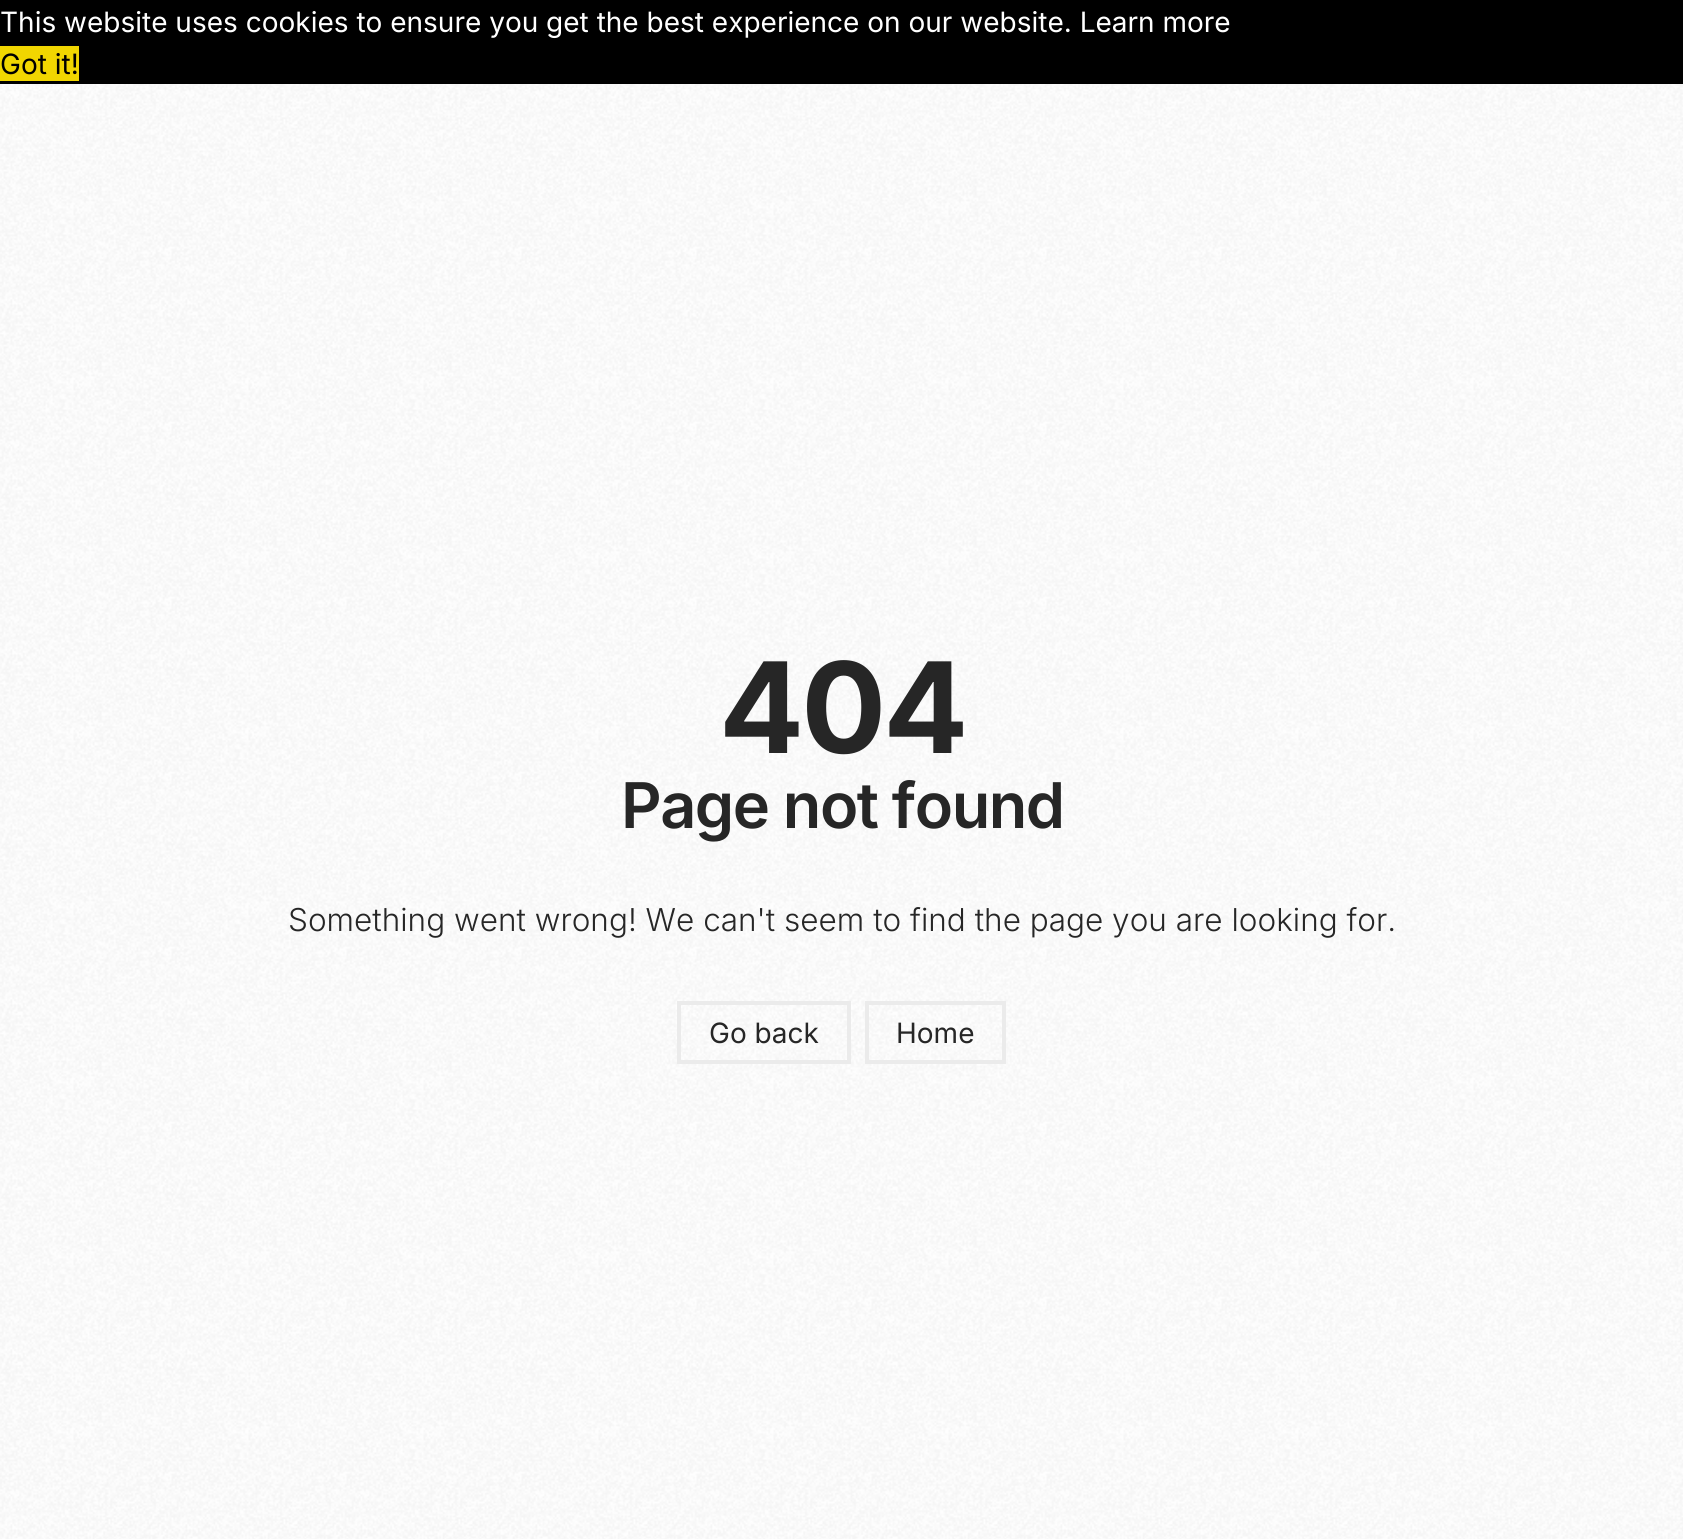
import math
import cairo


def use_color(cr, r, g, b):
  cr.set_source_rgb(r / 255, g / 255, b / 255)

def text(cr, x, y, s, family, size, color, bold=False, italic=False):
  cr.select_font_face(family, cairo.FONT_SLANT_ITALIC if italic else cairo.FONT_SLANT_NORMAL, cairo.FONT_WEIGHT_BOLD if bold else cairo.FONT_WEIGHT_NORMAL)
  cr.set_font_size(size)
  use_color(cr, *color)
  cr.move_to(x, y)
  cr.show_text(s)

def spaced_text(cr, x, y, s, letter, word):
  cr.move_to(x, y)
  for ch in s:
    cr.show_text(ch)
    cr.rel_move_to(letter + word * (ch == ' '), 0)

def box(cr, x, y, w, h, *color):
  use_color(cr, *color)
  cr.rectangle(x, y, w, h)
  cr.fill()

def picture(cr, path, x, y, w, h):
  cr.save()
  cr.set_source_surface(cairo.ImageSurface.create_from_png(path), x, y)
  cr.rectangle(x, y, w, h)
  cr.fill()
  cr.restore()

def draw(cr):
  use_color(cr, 255, 255, 255)
  cr.paint()
  box(cr, 0, 0, 1683, 84, 0, 0, 0)
  box(cr, 0, 46, 79, 35, 241, 214, 0)
  picture(cr, "img_01.png", 0, 84, 1683, 1455)
  cr.rectangle(679, 1003, 170, 59)
  use_color(cr, 235, 235, 235)
  cr.set_line_width(4)
  cr.stroke()
  cr.rectangle(867, 1003, 137, 59)
  cr.stroke()
  text(cr, 0, 32, "This website uses cookies to ensure you get the best experience on our website. Learn more", "Inter", 28, (255, 255, 255))
  text(cr, 0, 74, "Got it!", "Inter", 28, (0, 0, 0))
  cr.select_font_face("Inter", cairo.FONT_SLANT_NORMAL, cairo.FONT_WEIGHT_BOLD)
  cr.set_font_size(126)
  use_color(cr, 38, 38, 38)
  spaced_text(cr, 719, 753, "404", -3, 0)
  cr.select_font_face("Inter SemiBold")
  cr.set_font_size(63)
  spaced_text(cr, 621, 828, "Page not found", -1.5, 0)
  text(cr, 288, 931, "Something went wrong! We can't seem to find the page you are looking for.", "Inter Light", 31.5, (38, 38, 38))
  text(cr, 709, 1043, "Go back", "Inter", 28, (38, 38, 38))
  text(cr, 896, 1043, "Home", "Inter", 28, (38, 38, 38))


surface = cairo.ImageSurface(cairo.FORMAT_RGB24, 1683, 1539)
cr = cairo.Context(surface)
options = cairo.FontOptions()
options.set_hint_metrics(cairo.HINT_METRICS_OFF)
options.set_hint_style(cairo.HINT_STYLE_NONE)
cr.set_font_options(options)
cr.set_miter_limit(4)
draw(cr)
surface.write_to_png("out.png")
